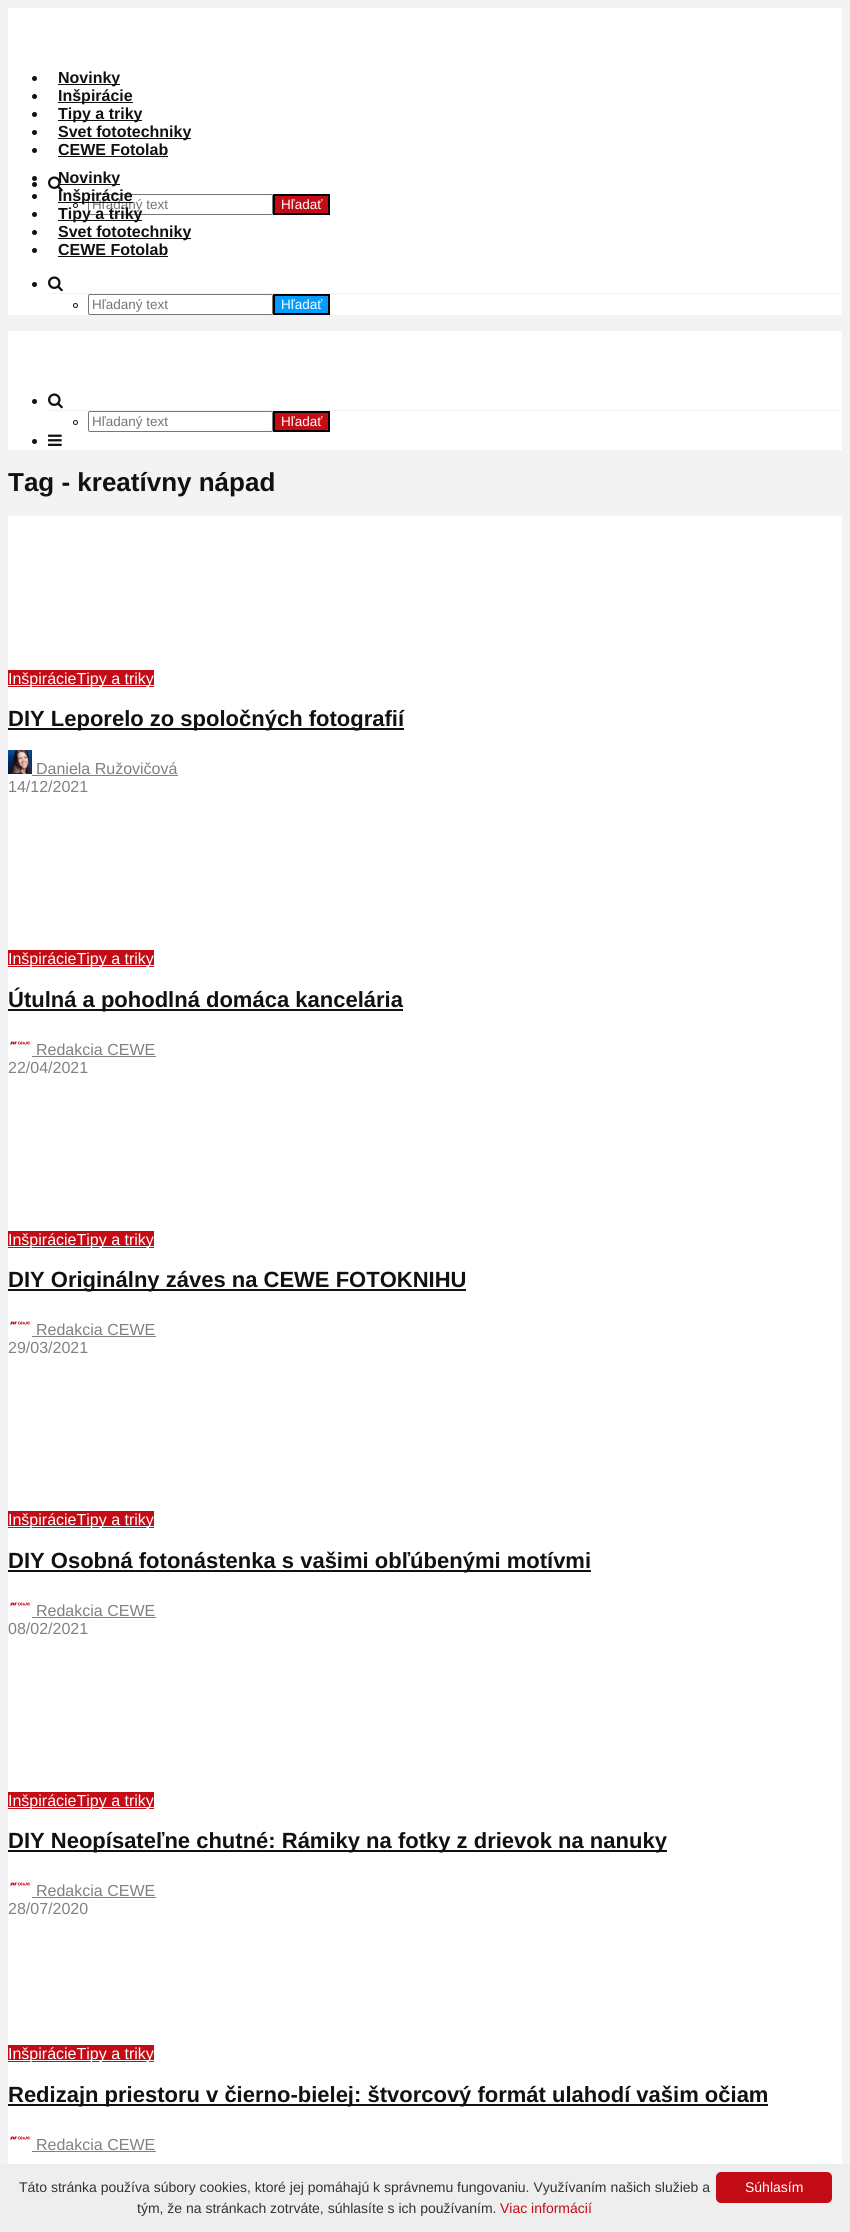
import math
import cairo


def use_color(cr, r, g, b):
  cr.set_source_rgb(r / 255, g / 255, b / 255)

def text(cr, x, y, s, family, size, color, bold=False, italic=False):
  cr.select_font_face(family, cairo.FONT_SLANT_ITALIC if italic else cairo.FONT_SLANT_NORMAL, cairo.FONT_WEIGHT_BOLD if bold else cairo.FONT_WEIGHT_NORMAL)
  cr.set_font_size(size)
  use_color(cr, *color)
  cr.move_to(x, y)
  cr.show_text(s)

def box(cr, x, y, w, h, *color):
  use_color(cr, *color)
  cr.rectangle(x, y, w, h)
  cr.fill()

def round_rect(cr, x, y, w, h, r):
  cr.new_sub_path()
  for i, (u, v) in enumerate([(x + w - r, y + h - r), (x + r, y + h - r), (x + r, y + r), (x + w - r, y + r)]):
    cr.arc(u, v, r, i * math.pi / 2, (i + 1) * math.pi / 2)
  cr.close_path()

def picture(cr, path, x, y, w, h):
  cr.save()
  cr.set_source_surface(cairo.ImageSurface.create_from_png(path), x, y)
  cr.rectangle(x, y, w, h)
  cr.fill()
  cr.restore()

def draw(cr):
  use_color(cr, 243, 243, 243)
  cr.paint()
  box(cr, 8, 8, 834, 307, 255, 255, 255)
  use_color(cr, 17, 17, 17)
  cr.arc(34.5, 78.5, 2.5, 0, 2 * math.pi)
  cr.fill()
  box(cr, 58, 84, 62, 1, 17, 17, 17)
  cr.arc(34.5, 96.5, 2.5, 0, 2 * math.pi)
  cr.fill()
  box(cr, 58, 102, 75, 1, 17, 17, 17)
  cr.arc(34.5, 114.5, 2.5, 0, 2 * math.pi)
  cr.fill()
  box(cr, 58, 120, 84, 1, 17, 17, 17)
  cr.arc(34.5, 132.5, 2.5, 0, 2 * math.pi)
  cr.fill()
  box(cr, 58, 138, 133, 1, 17, 17, 17)
  cr.arc(34.5, 150.5, 2.5, 0, 2 * math.pi)
  cr.fill()
  box(cr, 58, 156, 110, 1, 17, 17, 17)
  cr.arc(34.5, 184.5, 2.5, 0, 2 * math.pi)
  cr.fill()
  picture(cr, "img_01.png", 48, 176, 15, 16)
  cr.arc(75.5, 205.5, 2, 0, 2 * math.pi)
  cr.set_line_width(1)
  cr.stroke()
  round_rect(cr, 88.5, 194.5, 184, 20, 1.5)
  use_color(cr, 118, 118, 118)
  cr.stroke()
  use_color(cr, 195, 12, 21)
  cr.rectangle(274, 195, 55, 19)
  cr.fill_preserve()
  use_color(cr, 0, 0, 0)
  cr.set_line_width(2)
  cr.stroke()
  use_color(cr, 17, 17, 17)
  cr.arc(34.5, 178.5, 2.5, 0, 2 * math.pi)
  cr.fill()
  box(cr, 58, 184, 62, 1, 17, 17, 17)
  cr.arc(34.5, 196.5, 2.5, 0, 2 * math.pi)
  cr.fill()
  cr.arc(34.5, 214.5, 2.5, 0, 2 * math.pi)
  cr.fill()
  box(cr, 58, 220, 84, 1, 17, 17, 17)
  cr.arc(34.5, 232.5, 2.5, 0, 2 * math.pi)
  cr.fill()
  box(cr, 58, 238, 133, 1, 17, 17, 17)
  cr.arc(34.5, 250.5, 2.5, 0, 2 * math.pi)
  cr.fill()
  box(cr, 58, 256, 110, 1, 17, 17, 17)
  cr.arc(34.5, 284.5, 2.5, 0, 2 * math.pi)
  cr.fill()
  picture(cr, "img_01.png", 48, 276, 15, 16)
  box(cr, 48, 293, 794, 1, 243, 243, 243)
  cr.arc(75.5, 305.5, 2, 0, 2 * math.pi)
  use_color(cr, 17, 17, 17)
  cr.set_line_width(1)
  cr.stroke()
  round_rect(cr, 88.5, 294.5, 184, 20, 1.5)
  use_color(cr, 118, 118, 118)
  cr.stroke()
  use_color(cr, 0, 156, 255)
  cr.rectangle(274, 295, 55, 19)
  cr.fill_preserve()
  use_color(cr, 0, 0, 0)
  cr.set_line_width(2)
  cr.stroke()
  box(cr, 8, 331, 834, 119, 255, 255, 255)
  use_color(cr, 17, 17, 17)
  cr.arc(34.5, 401.5, 2.5, 0, 2 * math.pi)
  cr.fill()
  picture(cr, "img_01.png", 48, 393, 15, 16)
  box(cr, 48, 410, 794, 1, 243, 243, 243)
  cr.arc(75.5, 422.5, 2, 0, 2 * math.pi)
  use_color(cr, 17, 17, 17)
  cr.set_line_width(1)
  cr.stroke()
  round_rect(cr, 88.5, 411.5, 184, 20, 1.5)
  use_color(cr, 118, 118, 118)
  cr.stroke()
  use_color(cr, 195, 12, 21)
  cr.rectangle(274, 412, 55, 19)
  cr.fill_preserve()
  use_color(cr, 0, 0, 0)
  cr.set_line_width(2)
  cr.stroke()
  use_color(cr, 17, 17, 17)
  cr.arc(34.5, 441.5, 2.5, 0, 2 * math.pi)
  cr.fill()
  picture(cr, "img_02.png", 48, 434, 14, 12)
  box(cr, 8, 516, 834, 1648, 255, 255, 255)
  box(cr, 8, 670, 146, 17, 195, 12, 21)
  box(cr, 8, 685, 146, 1, 255, 255, 255)
  box(cr, 8, 728, 396, 2, 17, 17, 17)
  picture(cr, "img_03.png", 8, 750, 24, 24)
  box(cr, 32, 775, 146, 1, 129, 129, 129)
  box(cr, 8, 950, 146, 17, 195, 12, 21)
  box(cr, 8, 965, 146, 1, 255, 255, 255)
  box(cr, 8, 1009, 395, 2, 17, 17, 17)
  picture(cr, "img_04.png", 10, 1041, 21, 4)
  box(cr, 32, 1056, 124, 1, 129, 129, 129)
  box(cr, 8, 1231, 146, 17, 195, 12, 21)
  box(cr, 8, 1246, 146, 1, 255, 255, 255)
  box(cr, 8, 1289, 458, 2, 17, 17, 17)
  picture(cr, "img_04.png", 10, 1321, 21, 4)
  box(cr, 32, 1336, 124, 1, 129, 129, 129)
  box(cr, 8, 1511, 146, 17, 195, 12, 21)
  box(cr, 8, 1526, 146, 1, 255, 255, 255)
  box(cr, 8, 1570, 583, 2, 17, 17, 17)
  picture(cr, "img_04.png", 10, 1602, 21, 4)
  box(cr, 32, 1617, 124, 1, 129, 129, 129)
  box(cr, 8, 1792, 146, 17, 195, 12, 21)
  box(cr, 8, 1807, 146, 1, 255, 255, 255)
  box(cr, 8, 1850, 659, 2, 17, 17, 17)
  picture(cr, "img_04.png", 10, 1882, 21, 4)
  box(cr, 32, 1897, 124, 1, 129, 129, 129)
  box(cr, 8, 2045, 146, 17, 195, 12, 21)
  box(cr, 8, 2060, 146, 1, 255, 255, 255)
  box(cr, 8, 2104, 760, 2, 17, 17, 17)
  picture(cr, "img_04.png", 10, 2136, 21, 4)
  box(cr, 32, 2151, 124, 1, 129, 129, 129)
  box(cr, 0, 2164, 850, 68, 238, 238, 238)
  use_color(cr, 195, 12, 22)
  round_rect(cr, 716, 2172, 116, 31, 5)
  cr.fill()
  text(cr, 58, 83, "Novinky", "Liberation Sans", 16, (17, 17, 17), bold=True)
  text(cr, 58, 101, "Inšpirácie", "Liberation Sans", 16, (17, 17, 17), bold=True)
  text(cr, 58, 119, "Tipy a triky", "Liberation Sans", 16, (17, 17, 17), bold=True)
  text(cr, 58, 137, "Svet fototechniky", "Liberation Sans", 16, (17, 17, 17), bold=True)
  text(cr, 58, 155, "CEWE Fotolab", "Liberation Sans", 16, (17, 17, 17), bold=True)
  text(cr, 92, 209, "Hľadaný text", "Liberation Sans", 13.5, (117, 117, 117))
  text(cr, 281, 209, "Hľadať", "Liberation Sans", 13.5, (255, 255, 255))
  text(cr, 58, 183, "Novinky", "Liberation Sans", 16, (17, 17, 17), bold=True)
  box(cr, 58, 202, 75, 1, 17, 17, 17)
  text(cr, 58, 201, "Inšpirácie", "Liberation Sans", 16, (17, 17, 17), bold=True)
  text(cr, 58, 219, "Tipy a triky", "Liberation Sans", 16, (17, 17, 17), bold=True)
  text(cr, 58, 237, "Svet fototechniky", "Liberation Sans", 16, (17, 17, 17), bold=True)
  text(cr, 58, 255, "CEWE Fotolab", "Liberation Sans", 16, (17, 17, 17), bold=True)
  text(cr, 92, 309, "Hľadaný text", "Liberation Sans", 13.5, (117, 117, 117))
  text(cr, 281, 309, "Hľadať", "Liberation Sans", 13.5, (255, 255, 255))
  text(cr, 92, 426, "Hľadaný text", "Liberation Sans", 13.5, (117, 117, 117))
  text(cr, 281, 426, "Hľadať", "Liberation Sans", 13.5, (255, 255, 255))
  text(cr, 8, 491, "Tag - kreatívny nápad", "Liberation Sans", 26, (17, 17, 17), bold=True)
  text(cr, 8, 684, "InšpirácieTipy a triky", "Liberation Sans", 16, (255, 255, 255))
  text(cr, 8, 726, "DIY Leporelo zo spoločných fotografií", "Liberation Sans", 22, (17, 17, 17), bold=True)
  text(cr, 36, 774, "Daniela Ružovičová", "Liberation Sans", 16, (129, 129, 129))
  text(cr, 8, 792, "14/12/2021", "Liberation Sans", 16, (129, 129, 129))
  text(cr, 8, 964, "InšpirácieTipy a triky", "Liberation Sans", 16, (255, 255, 255))
  text(cr, 8, 1007, "Útulná a pohodlná domáca kancelária", "Liberation Sans", 22, (17, 17, 17), bold=True)
  text(cr, 36, 1055, "Redakcia CEWE", "Liberation Sans", 16, (129, 129, 129))
  text(cr, 8, 1073, "22/04/2021", "Liberation Sans", 16, (129, 129, 129))
  text(cr, 8, 1245, "InšpirácieTipy a triky", "Liberation Sans", 16, (255, 255, 255))
  text(cr, 8, 1287, "DIY Originálny záves na CEWE FOTOKNIHU", "Liberation Sans", 22, (17, 17, 17), bold=True)
  text(cr, 36, 1335, "Redakcia CEWE", "Liberation Sans", 16, (129, 129, 129))
  text(cr, 8, 1353, "29/03/2021", "Liberation Sans", 16, (129, 129, 129))
  text(cr, 8, 1525, "InšpirácieTipy a triky", "Liberation Sans", 16, (255, 255, 255))
  text(cr, 8, 1568, "DIY Osobná fotonástenka s vašimi obľúbenými motívmi", "Liberation Sans", 22, (17, 17, 17), bold=True)
  text(cr, 36, 1616, "Redakcia CEWE", "Liberation Sans", 16, (129, 129, 129))
  text(cr, 8, 1634, "08/02/2021", "Liberation Sans", 16, (129, 129, 129))
  text(cr, 8, 1806, "InšpirácieTipy a triky", "Liberation Sans", 16, (255, 255, 255))
  text(cr, 8, 1848, "DIY Neopísateľne chutné: Rámiky na fotky z drievok na nanuky", "Liberation Sans", 22, (17, 17, 17), bold=True)
  text(cr, 36, 1896, "Redakcia CEWE", "Liberation Sans", 16, (129, 129, 129))
  text(cr, 8, 1914, "28/07/2020", "Liberation Sans", 16, (129, 129, 129))
  text(cr, 8, 2059, "InšpirácieTipy a triky", "Liberation Sans", 16, (255, 255, 255))
  text(cr, 8, 2102, "Redizajn priestoru v čierno-bielej: štvorcový formát ulahodí vašim očiam", "Liberation Sans", 22, (17, 17, 17), bold=True)
  text(cr, 36, 2150, "Redakcia CEWE", "Liberation Sans", 16, (129, 129, 129))
  text(cr, 19, 2192, "Táto stránka používa súbory cookies, ktoré jej pomáhajú k správnemu fungovaniu. Využívaním našich služieb a", "Liberation Sans", 14, (51, 51, 51))
  text(cr, 137, 2213, "tým, že na stránkach zotrváte, súhlasíte s ich používaním.", "Liberation Sans", 14, (51, 51, 51))
  text(cr, 500, 2213, "Viac informácií", "Liberation Sans", 14, (195, 12, 22))
  text(cr, 745, 2192, "Súhlasím", "Liberation Sans", 14, (255, 255, 255))


surface = cairo.ImageSurface(cairo.FORMAT_RGB24, 850, 2232)
cr = cairo.Context(surface)
options = cairo.FontOptions()
options.set_hint_metrics(cairo.HINT_METRICS_OFF)
options.set_hint_style(cairo.HINT_STYLE_NONE)
cr.set_font_options(options)
cr.set_miter_limit(4)
draw(cr)
surface.write_to_png("out.png")
